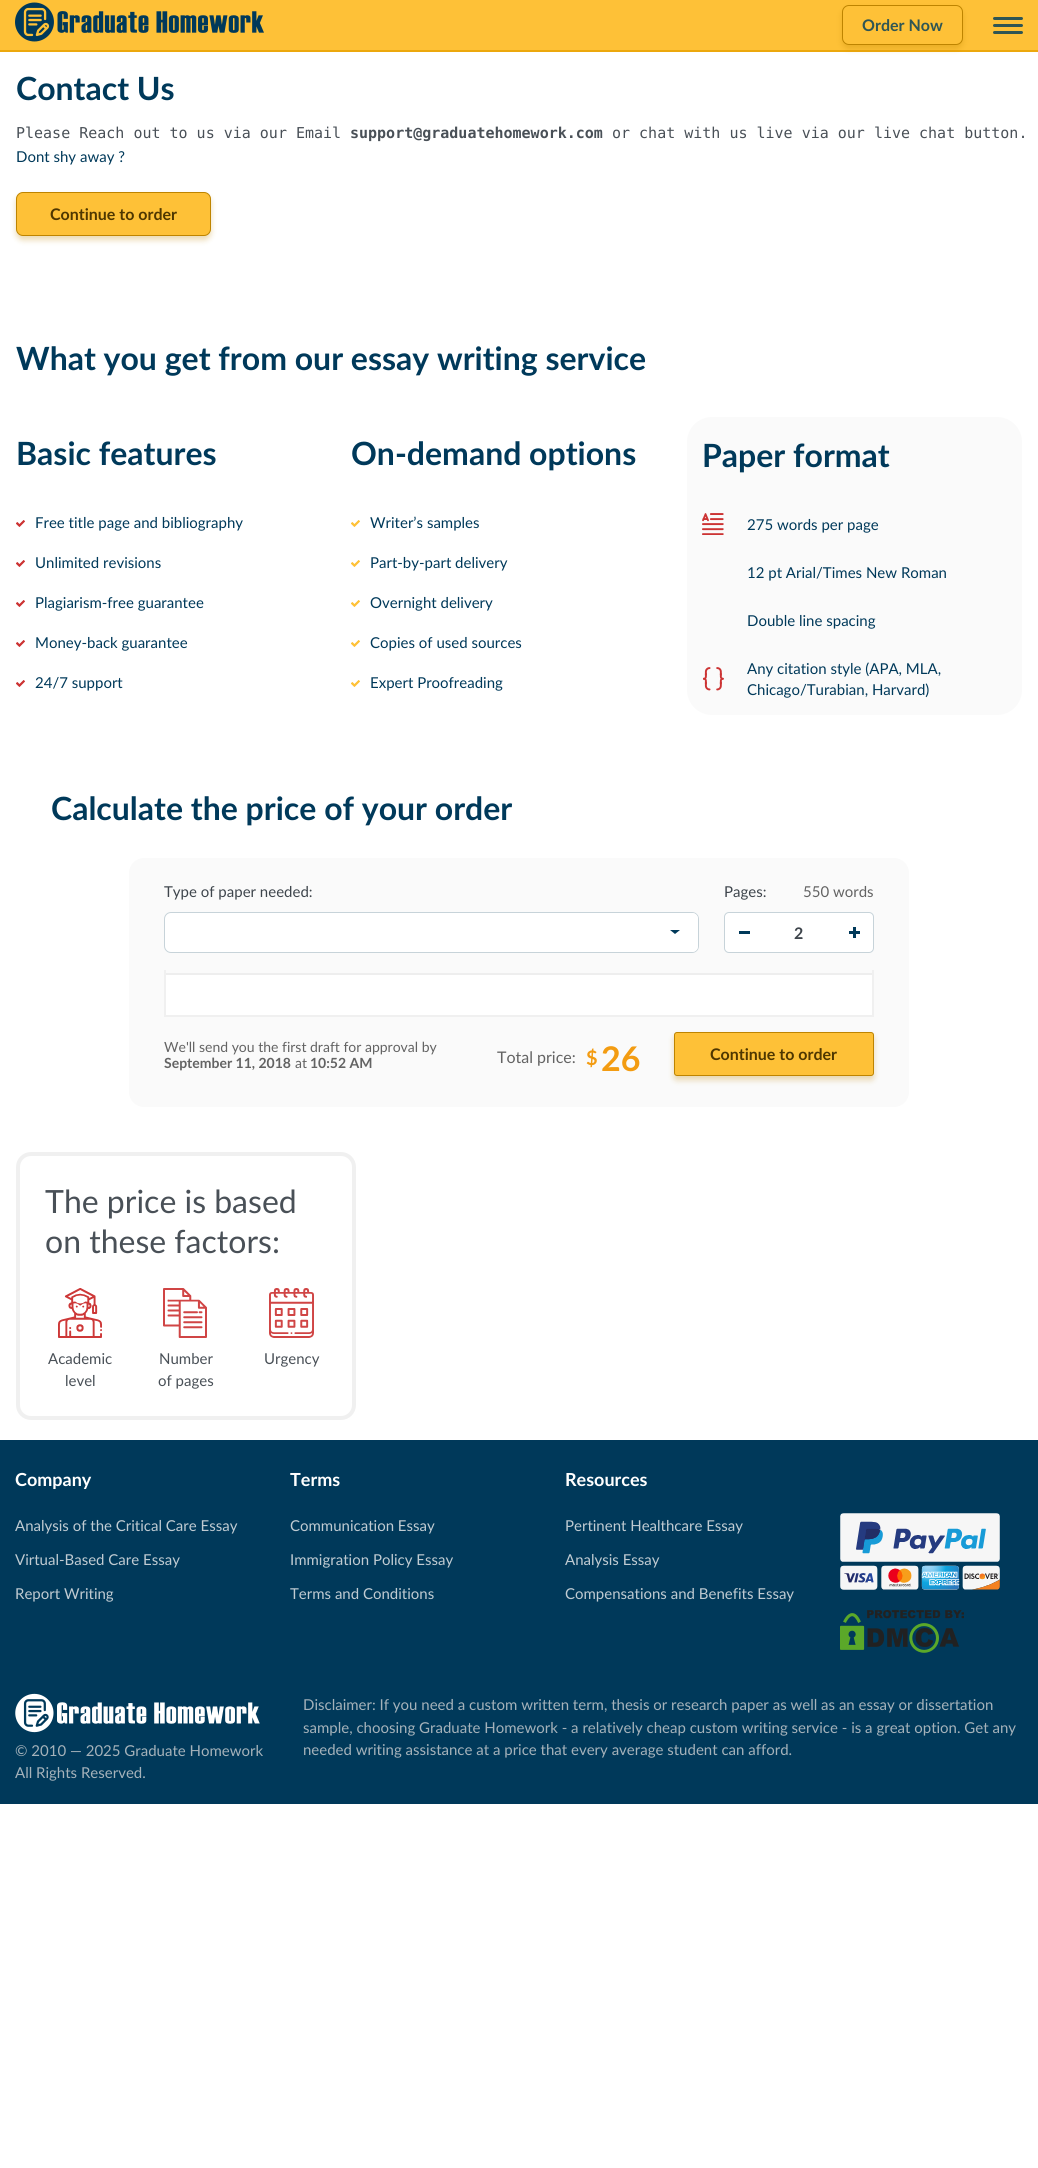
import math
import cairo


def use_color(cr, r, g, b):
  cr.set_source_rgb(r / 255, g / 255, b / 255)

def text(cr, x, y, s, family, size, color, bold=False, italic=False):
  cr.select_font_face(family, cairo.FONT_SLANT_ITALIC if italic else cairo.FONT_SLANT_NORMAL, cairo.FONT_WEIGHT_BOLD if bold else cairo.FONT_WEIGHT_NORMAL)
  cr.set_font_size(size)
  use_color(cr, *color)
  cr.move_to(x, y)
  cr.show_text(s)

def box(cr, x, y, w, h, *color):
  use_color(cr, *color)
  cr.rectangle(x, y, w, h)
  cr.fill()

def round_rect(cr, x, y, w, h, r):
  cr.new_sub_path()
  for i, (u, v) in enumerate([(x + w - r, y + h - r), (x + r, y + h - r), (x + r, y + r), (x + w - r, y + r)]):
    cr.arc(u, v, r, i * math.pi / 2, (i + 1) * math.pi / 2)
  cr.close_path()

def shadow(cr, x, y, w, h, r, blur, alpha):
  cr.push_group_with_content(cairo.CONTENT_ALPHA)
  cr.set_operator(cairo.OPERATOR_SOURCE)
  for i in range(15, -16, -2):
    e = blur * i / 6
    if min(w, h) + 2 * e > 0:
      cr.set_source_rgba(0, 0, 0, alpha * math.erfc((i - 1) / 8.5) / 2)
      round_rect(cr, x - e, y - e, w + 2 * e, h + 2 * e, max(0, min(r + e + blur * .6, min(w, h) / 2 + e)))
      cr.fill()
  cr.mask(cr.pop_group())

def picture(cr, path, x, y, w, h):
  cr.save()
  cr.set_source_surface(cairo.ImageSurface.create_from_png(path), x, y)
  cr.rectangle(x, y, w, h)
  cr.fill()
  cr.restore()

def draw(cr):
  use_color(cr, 255, 255, 255)
  cr.paint()
  box(cr, 0, 0, 1038, 50, 254, 193, 55)
  box(cr, 0, 50, 1038, 2, 236, 168, 13)
  picture(cr, "img_01.png", 15, 2, 249, 40)
  use_color(cr, 190, 132, 0)
  shadow(cr, 842, 9, 121, 40, 7, 3, 0.3)
  use_color(cr, 254, 193, 55)
  round_rect(cr, 842.5, 5.5, 120, 39, 6.5)
  cr.fill_preserve()
  use_color(cr, 190, 132, 0)
  cr.set_line_width(1)
  cr.stroke()
  use_color(cr, 47, 86, 84)
  round_rect(cr, 993, 24, 30, 3, 1.5)
  cr.fill()
  round_rect(cr, 993, 17, 30, 3, 1.5)
  cr.fill()
  round_rect(cr, 993, 31, 30, 3, 1.5)
  cr.fill()
  use_color(cr, 190, 132, 0)
  shadow(cr, 16, 196, 195, 44, 7, 3, 0.3)
  use_color(cr, 254, 193, 55)
  round_rect(cr, 16.5, 192.5, 194, 43, 6.5)
  cr.fill_preserve()
  use_color(cr, 190, 132, 0)
  cr.stroke()
  picture(cr, "img_02.png", 16, 520, 9, 7)
  picture(cr, "img_02.png", 16, 560, 9, 7)
  picture(cr, "img_02.png", 16, 600, 9, 7)
  picture(cr, "img_02.png", 16, 640, 9, 7)
  picture(cr, "img_02.png", 16, 680, 9, 7)
  picture(cr, "img_03.png", 351, 520, 9, 7)
  picture(cr, "img_03.png", 351, 560, 9, 7)
  picture(cr, "img_03.png", 351, 600, 9, 7)
  picture(cr, "img_03.png", 351, 640, 9, 7)
  picture(cr, "img_03.png", 351, 680, 9, 7)
  use_color(cr, 250, 250, 250)
  round_rect(cr, 687, 417, 335, 298, 25)
  cr.fill()
  picture(cr, "img_04.png", 702, 513, 22, 22)
  picture(cr, "img_05.png", 703, 667, 21, 24)
  round_rect(cr, 129, 858, 780, 249, 15)
  cr.fill()
  use_color(cr, 255, 255, 255)
  round_rect(cr, 164.5, 912.5, 534, 40, 6.5)
  cr.fill_preserve()
  use_color(cr, 199, 211, 217)
  cr.stroke()
  use_color(cr, 255, 255, 255)
  cr.new_path()
  cr.move_to(673, 913)
  cr.line_to(692, 913)
  cr.curve_to(695.5, 913, 698, 915.5, 698, 919)
  cr.line_to(698, 946)
  cr.curve_to(698, 949.5, 695.5, 952, 692, 952)
  cr.line_to(673, 952)
  cr.close_path()
  cr.fill()
  use_color(cr, 0, 57, 90)
  cr.new_path()
  cr.move_to(670, 930)
  cr.line_to(680, 930)
  cr.line_to(675, 934)
  cr.close_path()
  cr.fill()
  use_color(cr, 255, 255, 255)
  round_rect(cr, 724.5, 912.5, 149, 40, 4.5)
  cr.fill_preserve()
  use_color(cr, 199, 211, 217)
  cr.stroke()
  box(cr, 739, 931, 11, 3, 0, 57, 90)
  box(cr, 849, 931, 11, 3, 0, 57, 90)
  box(cr, 853, 927, 3, 11, 0, 57, 90)
  box(cr, 166, 975, 706, 40, 255, 255, 255)
  box(cr, 164, 973, 710, 2, 238, 238, 238)
  box(cr, 872, 970, 2, 47, 240, 240, 240)
  box(cr, 164, 1015, 710, 2, 240, 240, 240)
  box(cr, 164, 970, 2, 47, 240, 240, 240)
  use_color(cr, 190, 132, 0)
  shadow(cr, 674, 1036, 200, 44, 3, 3, 0.3)
  use_color(cr, 254, 193, 55)
  round_rect(cr, 674.5, 1032.5, 199, 43, 2.5)
  cr.fill_preserve()
  use_color(cr, 190, 132, 0)
  cr.stroke()
  round_rect(cr, 18, 1154, 336, 264, 13)
  use_color(cr, 240, 240, 240)
  cr.set_line_width(4)
  cr.stroke()
  picture(cr, "img_06.png", 58, 1288, 44, 50)
  picture(cr, "img_07.png", 163, 1288, 44, 50)
  picture(cr, "img_08.png", 269, 1288, 45, 50)
  box(cr, 0, 1440, 1038, 364, 0, 57, 90)
  picture(cr, "img_09.png", 840, 1513, 160, 77)
  picture(cr, "img_10.png", 840, 1610, 124, 43)
  picture(cr, "img_11.png", 15, 1693, 245, 40)
  text(cr, 862, 31, "Order Now", "Lato", 16, (47, 86, 84), bold=True)
  text(cr, 16, 100, "Contact Us", "Lato", 32, (0, 57, 90), bold=True)
  text(cr, 16, 138, "Please Reach out to us via our Email", "DejaVu Sans Mono", 15, (73, 80, 87))
  text(cr, 350, 138, "support@graduatehomework.com", "DejaVu Sans Mono", 15, (73, 80, 87), bold=True)
  text(cr, 612, 138, "or chat with us live via our live chat button.", "DejaVu Sans Mono", 15, (73, 80, 87))
  text(cr, 16, 162, "Dont shy away ?", "Lato", 15, (0, 57, 90))
  text(cr, 50, 220, "Continue to order", "Lato", 16, (79, 55, 0), bold=True)
  text(cr, 16, 370, "What you get from our essay writing service", "Lato", 32, (0, 57, 90), bold=True)
  text(cr, 16, 465, "Basic features", "Lato", 32, (0, 57, 90), bold=True)
  text(cr, 35, 528, "Free title page and bibliography", "Lato", 15, (0, 57, 90))
  text(cr, 35, 568, "Unlimited revisions", "Lato", 15, (0, 57, 90))
  text(cr, 35, 608, "Plagiarism-free guarantee", "Lato", 15, (0, 57, 90))
  text(cr, 35, 648, "Money-back guarantee", "Lato", 15, (0, 57, 90))
  text(cr, 35, 688, "24/7 support", "Lato", 15, (0, 57, 90))
  text(cr, 351, 465, "On-demand options", "Lato", 32, (0, 57, 90), bold=True)
  text(cr, 370, 528, "Writer’s samples", "Lato", 15, (0, 57, 90))
  text(cr, 370, 568, "Part-by-part delivery", "Lato", 15, (0, 57, 90))
  text(cr, 370, 608, "Overnight delivery", "Lato", 15, (0, 57, 90))
  text(cr, 370, 648, "Copies of used sources", "Lato", 15, (0, 57, 90))
  text(cr, 370, 688, "Expert Proofreading", "Lato", 15, (0, 57, 90))
  text(cr, 702, 467, "Paper format", "Lato", 32, (0, 57, 90), bold=True)
  text(cr, 747, 530, "275 words per page", "Lato", 15, (0, 57, 90))
  text(cr, 747, 578, "12 pt Arial/Times New Roman", "Lato", 15, (0, 57, 90))
  text(cr, 747, 626, "Double line spacing", "Lato", 15, (0, 57, 90))
  text(cr, 747, 674, "Any citation style (APA, MLA,", "Lato", 15, (0, 57, 90))
  text(cr, 747, 695, "Chicago/Turabian, Harvard)", "Lato", 15, (0, 57, 90))
  text(cr, 51, 820, "Calculate the price of your order", "Lato", 32, (0, 57, 90), bold=True)
  text(cr, 164, 897, "Type of paper needed:", "Lato", 15, (62, 69, 76))
  text(cr, 724, 897, "Pages:", "Lato", 15, (62, 69, 76))
  text(cr, 803, 897, "550 words", "Lato", 15, (99, 99, 99))
  text(cr, 794, 939, "2", "Lato", 16, (62, 69, 76), bold=True)
  text(cr, 164, 1052, "We'll send you the first draft for approval by", "Lato", 14, (99, 99, 99))
  text(cr, 164, 1068, "September 11, 2018", "Lato", 14, (99, 99, 99), bold=True)
  text(cr, 295, 1068, "at", "Lato", 14, (99, 99, 99))
  text(cr, 310, 1068, "10:52 AM", "Lato", 14, (99, 99, 99), bold=True)
  text(cr, 497, 1063, "Total price:", "Lato", 16, (99, 99, 99))
  text(cr, 586, 1065, "$", "Lato", 20, (243, 156, 18), bold=True)
  text(cr, 601, 1071, "26", "Lato", 34, (243, 156, 18), bold=True)
  text(cr, 710, 1060, "Continue to order", "Lato", 16, (79, 55, 0), bold=True)
  text(cr, 45, 1213, "The price is based", "Lato", 32, (73, 80, 87))
  text(cr, 45, 1253, "on these factors:", "Lato", 32, (73, 80, 87))
  text(cr, 48, 1364, "Academic", "Lato", 15, (73, 80, 87))
  text(cr, 65, 1386, "level", "Lato", 15, (73, 80, 87))
  text(cr, 159, 1364, "Number", "Lato", 15, (73, 80, 87))
  text(cr, 158, 1386, "of pages", "Lato", 15, (73, 80, 87))
  text(cr, 264, 1364, "Urgency", "Lato", 15, (73, 80, 87))
  text(cr, 15, 1486, "Company", "Lato", 18, (255, 255, 255), bold=True)
  text(cr, 15, 1531, "Analysis of the Critical Care Essay", "Lato", 15, (192, 203, 210))
  text(cr, 15, 1565, "Virtual-Based Care Essay", "Lato", 15, (192, 203, 210))
  text(cr, 15, 1599, "Report Writing", "Lato", 15, (192, 203, 210))
  text(cr, 290, 1486, "Terms", "Lato", 18, (255, 255, 255), bold=True)
  text(cr, 290, 1531, "Communication Essay", "Lato", 15, (192, 203, 210))
  text(cr, 290, 1565, "Immigration Policy Essay", "Lato", 15, (192, 203, 210))
  text(cr, 290, 1599, "Terms and Conditions", "Lato", 15, (192, 203, 210))
  text(cr, 565, 1486, "Resources", "Lato", 18, (255, 255, 255), bold=True)
  text(cr, 565, 1531, "Pertinent Healthcare Essay", "Lato", 15, (192, 203, 210))
  text(cr, 565, 1565, "Analysis Essay", "Lato", 15, (192, 203, 210))
  text(cr, 565, 1599, "Compensations and Benefits Essay", "Lato", 15, (192, 203, 210))
  text(cr, 303, 1710, "Disclaimer: If you need a custom written term, thesis or research paper as well as an essay or dissertation", "Lato", 15, (165, 178, 186))
  text(cr, 303, 1733, "sample, choosing Graduate Homework - a relatively cheap custom writing service - is a great option. Get any", "Lato", 15, (165, 178, 186))
  text(cr, 303, 1755, "needed writing assistance at a price that every average student can afford.", "Lato", 15, (165, 178, 186))
  text(cr, 15, 1756, "© 2010 — 2025 Graduate Homework", "Lato", 15, (165, 178, 186))
  text(cr, 15, 1778, "All Rights Reserved.", "Lato", 15, (165, 178, 186))


surface = cairo.ImageSurface(cairo.FORMAT_RGB24, 1038, 2168)
cr = cairo.Context(surface)
options = cairo.FontOptions()
options.set_hint_metrics(cairo.HINT_METRICS_OFF)
options.set_hint_style(cairo.HINT_STYLE_NONE)
cr.set_font_options(options)
cr.set_miter_limit(4)
draw(cr)
surface.write_to_png("out.png")
